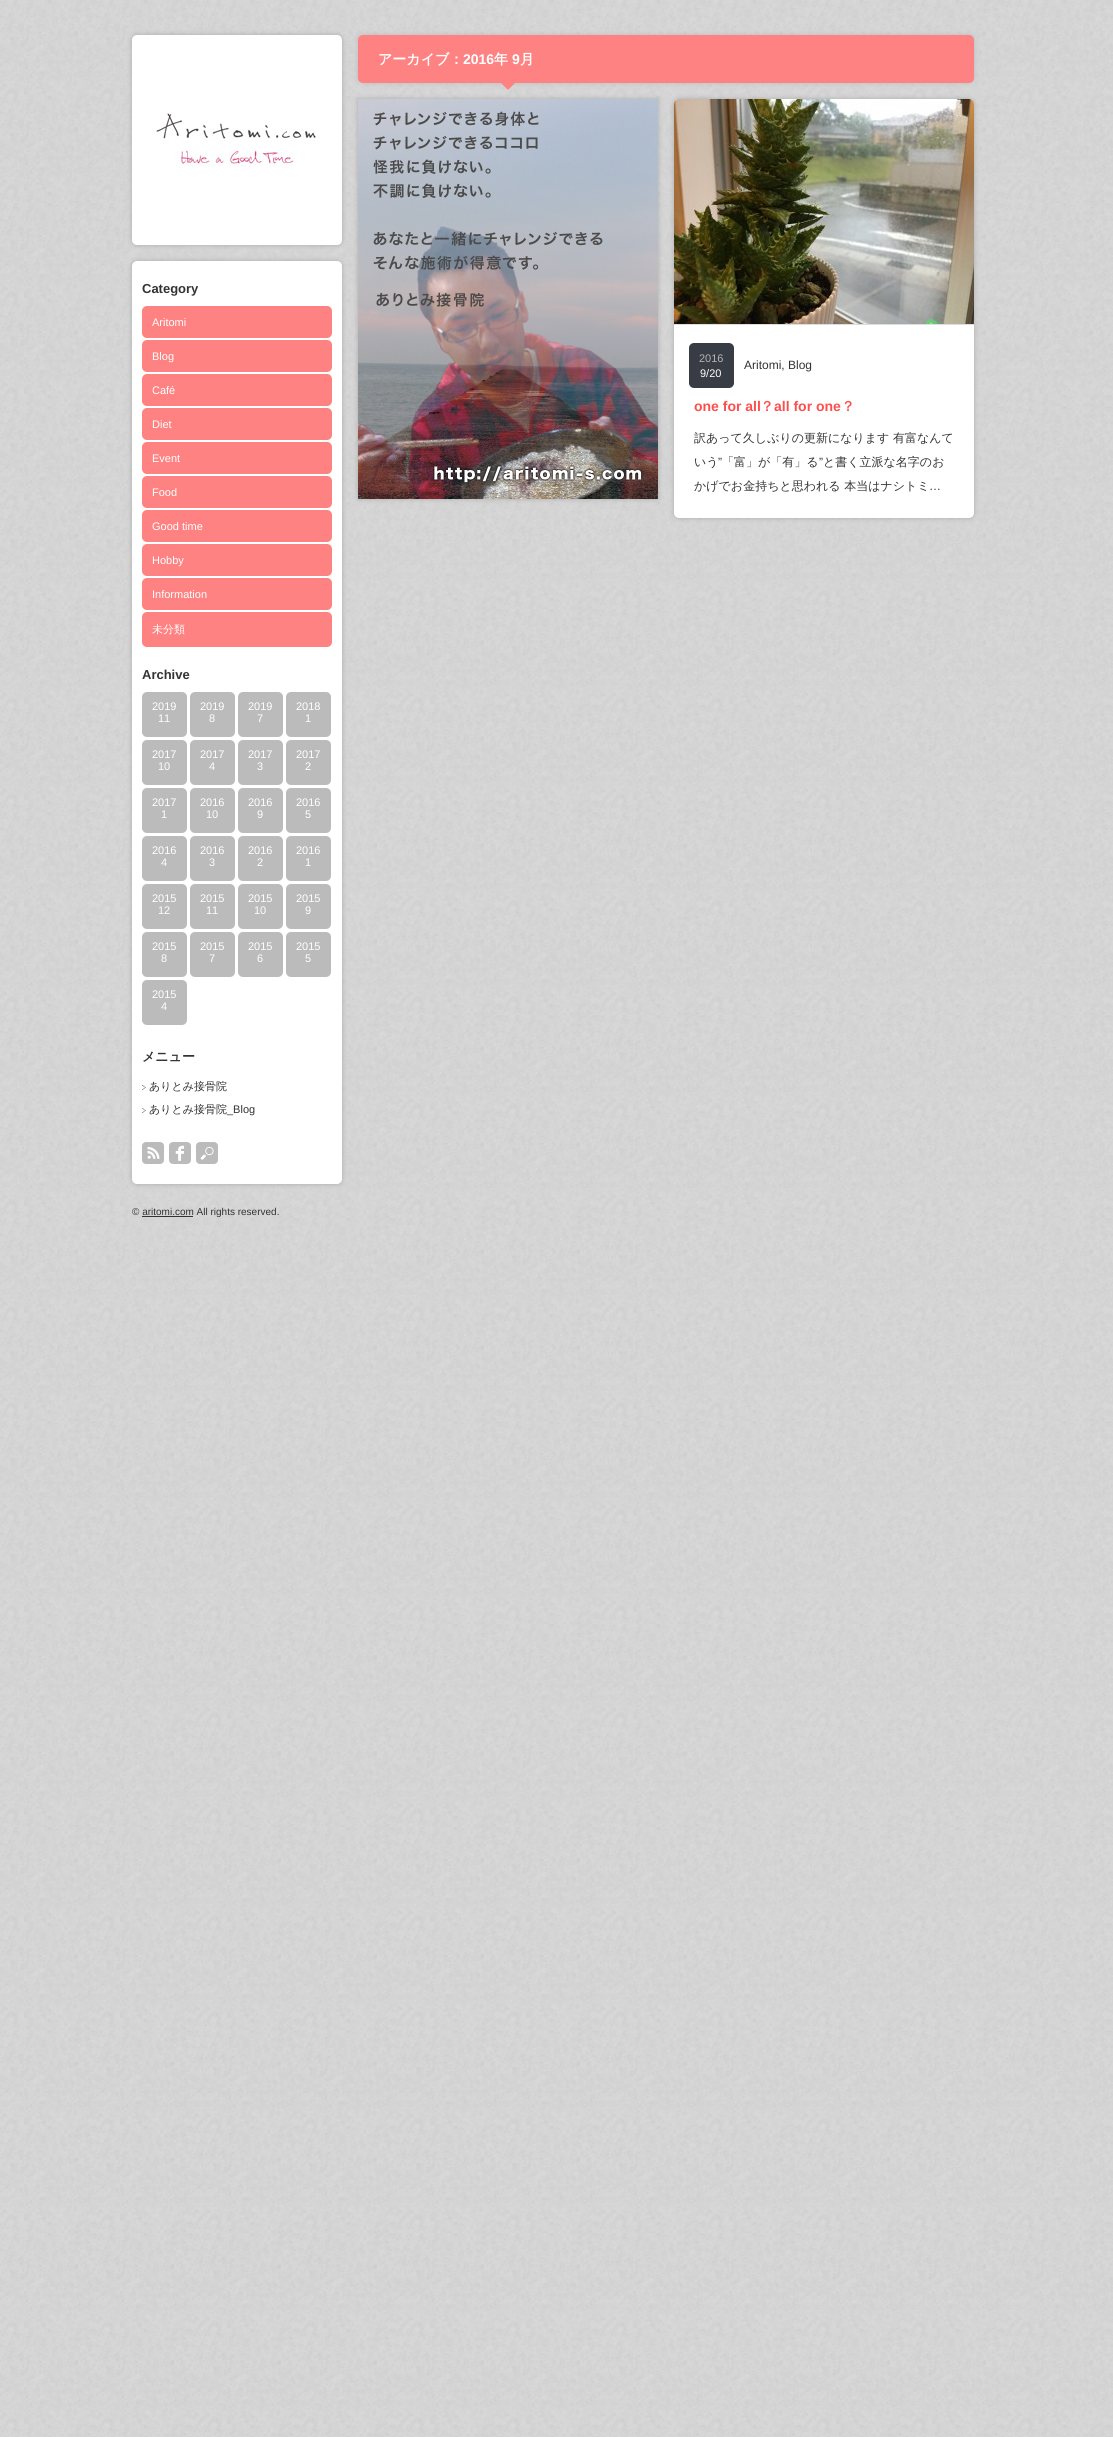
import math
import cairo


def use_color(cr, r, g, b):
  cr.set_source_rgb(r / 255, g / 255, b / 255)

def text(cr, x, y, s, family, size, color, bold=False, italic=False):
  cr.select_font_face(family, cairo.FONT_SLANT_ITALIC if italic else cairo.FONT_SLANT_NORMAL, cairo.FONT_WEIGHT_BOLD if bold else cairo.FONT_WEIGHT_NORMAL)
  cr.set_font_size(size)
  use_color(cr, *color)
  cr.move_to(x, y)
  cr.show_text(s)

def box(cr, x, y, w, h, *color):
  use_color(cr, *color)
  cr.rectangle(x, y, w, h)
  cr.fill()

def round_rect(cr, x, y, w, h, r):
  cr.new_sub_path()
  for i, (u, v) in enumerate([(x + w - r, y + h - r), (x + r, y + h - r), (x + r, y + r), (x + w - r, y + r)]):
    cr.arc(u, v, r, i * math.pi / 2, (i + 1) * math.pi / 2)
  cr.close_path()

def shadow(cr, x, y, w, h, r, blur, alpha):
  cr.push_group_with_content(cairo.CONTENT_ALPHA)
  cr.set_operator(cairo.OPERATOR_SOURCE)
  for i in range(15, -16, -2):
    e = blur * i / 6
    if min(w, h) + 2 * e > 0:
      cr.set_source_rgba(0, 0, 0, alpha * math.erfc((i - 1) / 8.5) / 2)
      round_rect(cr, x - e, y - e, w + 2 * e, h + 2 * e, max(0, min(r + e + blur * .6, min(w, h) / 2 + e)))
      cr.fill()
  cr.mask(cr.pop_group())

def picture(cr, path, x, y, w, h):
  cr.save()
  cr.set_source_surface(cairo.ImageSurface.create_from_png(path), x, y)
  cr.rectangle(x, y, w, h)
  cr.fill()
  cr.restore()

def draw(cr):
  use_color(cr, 255, 255, 255)
  cr.paint()
  picture(cr, "img_01.png", 0, 0, 1113, 2437)
  use_color(cr, 170, 170, 170)
  shadow(cr, 132, 35, 210, 210, 5, 2.5, 1)
  use_color(cr, 255, 255, 255)
  round_rect(cr, 132, 35, 210, 210, 5)
  cr.fill()
  picture(cr, "img_02.png", 152, 112, 167, 55)
  use_color(cr, 170, 170, 170)
  shadow(cr, 132, 261, 210, 923, 5, 2.5, 1)
  use_color(cr, 255, 255, 255)
  round_rect(cr, 132, 261, 210, 923, 5)
  cr.fill()
  use_color(cr, 254, 130, 130)
  round_rect(cr, 142, 306, 190, 32, 5)
  cr.fill()
  round_rect(cr, 142, 340, 190, 32, 5)
  cr.fill()
  round_rect(cr, 142, 374, 190, 32, 5)
  cr.fill()
  round_rect(cr, 142, 408, 190, 32, 5)
  cr.fill()
  round_rect(cr, 142, 442, 190, 32, 5)
  cr.fill()
  round_rect(cr, 142, 476, 190, 32, 5)
  cr.fill()
  round_rect(cr, 142, 510, 190, 32, 5)
  cr.fill()
  round_rect(cr, 142, 544, 190, 32, 5)
  cr.fill()
  round_rect(cr, 142, 578, 190, 32, 5)
  cr.fill()
  round_rect(cr, 142, 612, 190, 35, 5)
  cr.fill()
  use_color(cr, 187, 187, 187)
  round_rect(cr, 142, 692, 45, 45, 5)
  cr.fill()
  round_rect(cr, 190, 692, 45, 45, 5)
  cr.fill()
  round_rect(cr, 238, 692, 45, 45, 5)
  cr.fill()
  round_rect(cr, 286, 692, 45, 45, 5)
  cr.fill()
  round_rect(cr, 142, 740, 45, 45, 5)
  cr.fill()
  round_rect(cr, 190, 740, 45, 45, 5)
  cr.fill()
  round_rect(cr, 238, 740, 45, 45, 5)
  cr.fill()
  round_rect(cr, 286, 740, 45, 45, 5)
  cr.fill()
  round_rect(cr, 142, 788, 45, 45, 5)
  cr.fill()
  round_rect(cr, 190, 788, 45, 45, 5)
  cr.fill()
  round_rect(cr, 238, 788, 45, 45, 5)
  cr.fill()
  round_rect(cr, 286, 788, 45, 45, 5)
  cr.fill()
  round_rect(cr, 142, 836, 45, 45, 5)
  cr.fill()
  round_rect(cr, 190, 836, 45, 45, 5)
  cr.fill()
  round_rect(cr, 238, 836, 45, 45, 5)
  cr.fill()
  round_rect(cr, 286, 836, 45, 45, 5)
  cr.fill()
  round_rect(cr, 142, 884, 45, 45, 5)
  cr.fill()
  round_rect(cr, 190, 884, 45, 45, 5)
  cr.fill()
  round_rect(cr, 238, 884, 45, 45, 5)
  cr.fill()
  round_rect(cr, 286, 884, 45, 45, 5)
  cr.fill()
  round_rect(cr, 142, 932, 45, 45, 5)
  cr.fill()
  round_rect(cr, 190, 932, 45, 45, 5)
  cr.fill()
  round_rect(cr, 238, 932, 45, 45, 5)
  cr.fill()
  round_rect(cr, 286, 932, 45, 45, 5)
  cr.fill()
  round_rect(cr, 142, 980, 45, 45, 5)
  cr.fill()
  picture(cr, "img_03.png", 142, 1085, 4, 5)
  picture(cr, "img_03.png", 142, 1108, 4, 5)
  picture(cr, "img_04.png", 142, 1142, 22, 22)
  picture(cr, "img_05.png", 169, 1142, 22, 22)
  picture(cr, "img_06.png", 196, 1142, 22, 22)
  box(cr, 142, 1216, 51, 1, 51, 51, 51)
  use_color(cr, 187, 187, 187)
  shadow(cr, 358, 35, 616, 48, 5, 2.5, 1)
  use_color(cr, 254, 130, 130)
  round_rect(cr, 358, 35, 616, 48, 5)
  cr.fill()
  cr.new_path()
  cr.move_to(498, 80)
  cr.line_to(518, 80)
  cr.line_to(508, 90)
  cr.close_path()
  cr.fill()
  use_color(cr, 170, 170, 170)
  shadow(cr, 358, 99, 300, 400, 0, 2.5, 1)
  picture(cr, "img_07.png", 358, 99, 300, 400)
  shadow(cr, 674, 99, 300, 419, 5, 2.5, 1)
  use_color(cr, 255, 255, 255)
  round_rect(cr, 674, 99, 300, 419, 5)
  cr.fill()
  picture(cr, "img_08.png", 674, 99, 300, 225)
  box(cr, 674, 324, 300, 1, 221, 221, 221)
  use_color(cr, 56, 60, 69)
  round_rect(cr, 689, 343, 45, 45, 5)
  cr.fill()
  text(cr, 142, 293, "Category", "Liberation Sans", 13, (51, 51, 51), bold=True)
  text(cr, 152, 326, "Aritomi", "Liberation Sans", 11, (255, 255, 255))
  text(cr, 152, 360, "Blog", "Liberation Sans", 11, (255, 255, 255))
  text(cr, 152, 394, "Café", "Liberation Sans", 11, (255, 255, 255))
  text(cr, 152, 428, "Diet", "Liberation Sans", 11, (255, 255, 255))
  text(cr, 152, 462, "Event", "Liberation Sans", 11, (255, 255, 255))
  text(cr, 152, 496, "Food", "Liberation Sans", 11, (255, 255, 255))
  text(cr, 152, 530, "Good time", "Liberation Sans", 11, (255, 255, 255))
  text(cr, 152, 564, "Hobby", "Liberation Sans", 11, (255, 255, 255))
  text(cr, 152, 598, "Information", "Liberation Sans", 11, (255, 255, 255))
  text(cr, 152, 633, "未分類", "WenQuanYi Zen Hei Medium", 11, (255, 255, 255))
  text(cr, 142, 679, "Archive", "Liberation Sans", 13, (51, 51, 51), bold=True)
  text(cr, 152, 710, "2019", "Liberation Sans", 11, (255, 255, 255))
  text(cr, 158, 722, "11", "Liberation Sans", 11, (255, 255, 255))
  text(cr, 200, 710, "2019", "Liberation Sans", 11, (255, 255, 255))
  text(cr, 209, 722, "8", "Liberation Sans", 11, (255, 255, 255))
  text(cr, 248, 710, "2019", "Liberation Sans", 11, (255, 255, 255))
  text(cr, 257, 722, "7", "Liberation Sans", 11, (255, 255, 255))
  text(cr, 296, 710, "2018", "Liberation Sans", 11, (255, 255, 255))
  text(cr, 305, 722, "1", "Liberation Sans", 11, (255, 255, 255))
  text(cr, 152, 758, "2017", "Liberation Sans", 11, (255, 255, 255))
  text(cr, 158, 770, "10", "Liberation Sans", 11, (255, 255, 255))
  text(cr, 200, 758, "2017", "Liberation Sans", 11, (255, 255, 255))
  text(cr, 209, 770, "4", "Liberation Sans", 11, (255, 255, 255))
  text(cr, 248, 758, "2017", "Liberation Sans", 11, (255, 255, 255))
  text(cr, 257, 770, "3", "Liberation Sans", 11, (255, 255, 255))
  text(cr, 296, 758, "2017", "Liberation Sans", 11, (255, 255, 255))
  text(cr, 305, 770, "2", "Liberation Sans", 11, (255, 255, 255))
  text(cr, 152, 806, "2017", "Liberation Sans", 11, (255, 255, 255))
  text(cr, 161, 818, "1", "Liberation Sans", 11, (255, 255, 255))
  text(cr, 200, 806, "2016", "Liberation Sans", 11, (255, 255, 255))
  text(cr, 206, 818, "10", "Liberation Sans", 11, (255, 255, 255))
  text(cr, 248, 806, "2016", "Liberation Sans", 11, (255, 255, 255))
  text(cr, 257, 818, "9", "Liberation Sans", 11, (255, 255, 255))
  text(cr, 296, 806, "2016", "Liberation Sans", 11, (255, 255, 255))
  text(cr, 305, 818, "5", "Liberation Sans", 11, (255, 255, 255))
  text(cr, 152, 854, "2016", "Liberation Sans", 11, (255, 255, 255))
  text(cr, 161, 866, "4", "Liberation Sans", 11, (255, 255, 255))
  text(cr, 200, 854, "2016", "Liberation Sans", 11, (255, 255, 255))
  text(cr, 209, 866, "3", "Liberation Sans", 11, (255, 255, 255))
  text(cr, 248, 854, "2016", "Liberation Sans", 11, (255, 255, 255))
  text(cr, 257, 866, "2", "Liberation Sans", 11, (255, 255, 255))
  text(cr, 296, 854, "2016", "Liberation Sans", 11, (255, 255, 255))
  text(cr, 305, 866, "1", "Liberation Sans", 11, (255, 255, 255))
  text(cr, 152, 902, "2015", "Liberation Sans", 11, (255, 255, 255))
  text(cr, 158, 914, "12", "Liberation Sans", 11, (255, 255, 255))
  text(cr, 200, 902, "2015", "Liberation Sans", 11, (255, 255, 255))
  text(cr, 206, 914, "11", "Liberation Sans", 11, (255, 255, 255))
  text(cr, 248, 902, "2015", "Liberation Sans", 11, (255, 255, 255))
  text(cr, 254, 914, "10", "Liberation Sans", 11, (255, 255, 255))
  text(cr, 296, 902, "2015", "Liberation Sans", 11, (255, 255, 255))
  text(cr, 305, 914, "9", "Liberation Sans", 11, (255, 255, 255))
  text(cr, 152, 950, "2015", "Liberation Sans", 11, (255, 255, 255))
  text(cr, 161, 962, "8", "Liberation Sans", 11, (255, 255, 255))
  text(cr, 200, 950, "2015", "Liberation Sans", 11, (255, 255, 255))
  text(cr, 209, 962, "7", "Liberation Sans", 11, (255, 255, 255))
  text(cr, 248, 950, "2015", "Liberation Sans", 11, (255, 255, 255))
  text(cr, 257, 962, "6", "Liberation Sans", 11, (255, 255, 255))
  text(cr, 296, 950, "2015", "Liberation Sans", 11, (255, 255, 255))
  text(cr, 305, 962, "5", "Liberation Sans", 11, (255, 255, 255))
  text(cr, 152, 998, "2015", "Liberation Sans", 11, (255, 255, 255))
  text(cr, 161, 1010, "4", "Liberation Sans", 11, (255, 255, 255))
  text(cr, 142, 1061, "メニュー", "WenQuanYi Zen Hei", 13, (51, 51, 51), bold=True)
  text(cr, 149, 1090, "ありとみ接骨院", "WenQuanYi Zen Hei Medium", 11, (51, 51, 51))
  text(cr, 149, 1113, "ありとみ接骨院", "WenQuanYi Zen Hei Medium", 11, (51, 51, 51))
  text(cr, 227, 1113, "_Blog", "Liberation Sans", 11, (51, 51, 51))
  text(cr, 132, 1215, "© aritomi.com All rights reserved.", "Liberation Sans", 10, (51, 51, 51))
  text(cr, 378, 64, "アーカイブ：", "WenQuanYi Zen Hei", 14, (255, 255, 255), bold=True)
  text(cr, 463, 64, "2016", "Liberation Sans", 14, (255, 255, 255), bold=True)
  text(cr, 494, 64, "年", "WenQuanYi Zen Hei", 14, (255, 255, 255), bold=True)
  text(cr, 512, 64, "9", "Liberation Sans", 14, (255, 255, 255), bold=True)
  text(cr, 520, 64, "月", "WenQuanYi Zen Hei", 14, (255, 255, 255), bold=True)
  text(cr, 699, 362, "2016", "Liberation Sans", 11, (179, 181, 180))
  text(cr, 700, 377, "9/20", "Liberation Sans", 11, (255, 255, 255))
  text(cr, 744, 369, "Aritomi, Blog", "Liberation Sans", 12, (51, 51, 51))
  text(cr, 694, 411, "one for all", "Liberation Sans", 14, (255, 77, 77), bold=True)
  text(cr, 760, 411, "？", "WenQuanYi Zen Hei", 14, (255, 77, 77), bold=True)
  text(cr, 774, 411, "all for one", "Liberation Sans", 14, (255, 77, 77), bold=True)
  text(cr, 841, 411, "？", "WenQuanYi Zen Hei", 14, (255, 77, 77), bold=True)
  text(cr, 694, 442, "訳あって久しぶりの更新になります 有富なんて", "WenQuanYi Zen Hei Medium", 12, (51, 51, 51))
  text(cr, 694, 466, "いう", "WenQuanYi Zen Hei Medium", 12, (51, 51, 51))
  text(cr, 718, 466, "”", "Liberation Sans", 12, (51, 51, 51))
  text(cr, 722, 466, "「富」が「有」る", "WenQuanYi Zen Hei Medium", 12, (51, 51, 51))
  text(cr, 819, 466, "”", "Liberation Sans", 12, (51, 51, 51))
  text(cr, 823, 466, "と書く立派な名字のお", "WenQuanYi Zen Hei Medium", 12, (51, 51, 51))
  text(cr, 694, 490, "かげでお金持ちと思われる 本当はナシトミ", "WenQuanYi Zen Hei Medium", 12, (51, 51, 51))
  text(cr, 929, 490, "…", "Liberation Sans", 12, (51, 51, 51))


surface = cairo.ImageSurface(cairo.FORMAT_RGB24, 1113, 2437)
cr = cairo.Context(surface)
options = cairo.FontOptions()
options.set_hint_metrics(cairo.HINT_METRICS_OFF)
options.set_hint_style(cairo.HINT_STYLE_NONE)
cr.set_font_options(options)
cr.set_miter_limit(4)
draw(cr)
surface.write_to_png("out.png")
